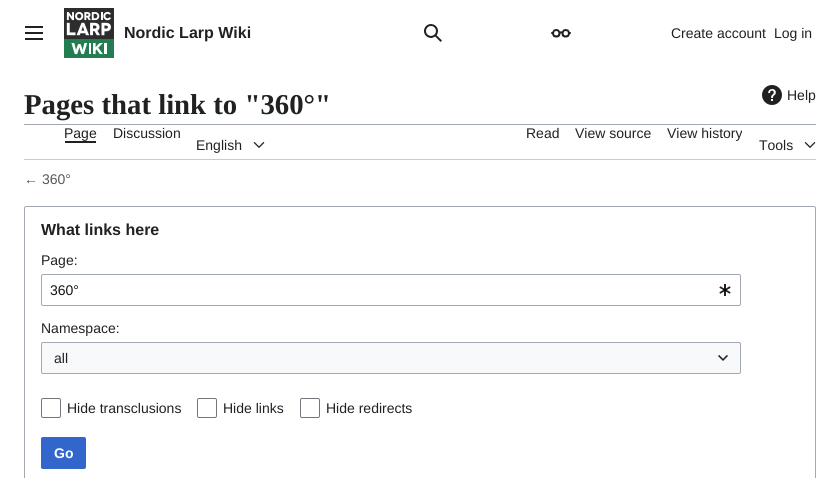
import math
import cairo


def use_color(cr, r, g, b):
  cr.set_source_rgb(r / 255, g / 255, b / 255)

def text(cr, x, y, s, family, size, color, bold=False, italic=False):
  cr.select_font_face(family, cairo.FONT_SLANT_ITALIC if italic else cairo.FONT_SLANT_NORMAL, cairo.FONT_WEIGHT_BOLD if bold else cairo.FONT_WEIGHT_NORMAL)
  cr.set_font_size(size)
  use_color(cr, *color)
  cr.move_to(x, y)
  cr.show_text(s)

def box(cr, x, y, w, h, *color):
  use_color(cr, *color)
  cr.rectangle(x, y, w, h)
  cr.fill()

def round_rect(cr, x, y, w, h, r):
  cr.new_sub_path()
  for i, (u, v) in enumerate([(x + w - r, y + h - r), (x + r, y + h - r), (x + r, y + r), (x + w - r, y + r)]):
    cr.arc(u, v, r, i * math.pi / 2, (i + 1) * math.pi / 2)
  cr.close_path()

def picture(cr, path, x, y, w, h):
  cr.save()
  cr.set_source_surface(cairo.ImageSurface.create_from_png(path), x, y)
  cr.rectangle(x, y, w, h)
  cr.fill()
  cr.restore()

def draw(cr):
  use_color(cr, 255, 255, 255)
  cr.paint()
  picture(cr, "img_01.png", 25, 26, 18, 14)
  picture(cr, "img_02.png", 64, 8, 50, 50)
  picture(cr, "img_03.png", 424, 24, 18, 18)
  picture(cr, "img_04.png", 551, 29, 20, 9)
  picture(cr, "img_05.png", 762, 85, 20, 20)
  box(cr, 24, 124, 792, 1, 162, 169, 177)
  box(cr, 24, 159, 792, 1, 200, 204, 209)
  box(cr, 65, 141, 31, 2, 32, 33, 34)
  picture(cr, "img_06.png", 253, 142, 12, 6)
  picture(cr, "img_06.png", 804, 142, 12, 6)
  round_rect(cr, 24.5, 206.5, 791, 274, 1.5)
  use_color(cr, 162, 169, 177)
  cr.set_line_width(1)
  cr.stroke()
  round_rect(cr, 41.5, 274.5, 699, 31, 1.5)
  cr.stroke()
  picture(cr, "img_07.png", 719, 284, 12, 12)
  box(cr, 41, 342, 700, 32, 248, 249, 250)
  round_rect(cr, 41.5, 342.5, 699, 31, 1.5)
  use_color(cr, 162, 169, 177)
  cr.stroke()
  picture(cr, "img_08.png", 718, 355, 10, 6)
  round_rect(cr, 41.5, 398.5, 19, 19, 1.5)
  use_color(cr, 114, 119, 125)
  cr.stroke()
  round_rect(cr, 197.5, 398.5, 19, 19, 1.5)
  cr.stroke()
  round_rect(cr, 300.5, 398.5, 19, 19, 1.5)
  cr.stroke()
  use_color(cr, 51, 102, 204)
  round_rect(cr, 41.5, 437.5, 44, 31, 1.5)
  cr.fill_preserve()
  cr.stroke()
  text(cr, 124, 38, "Nordic Larp Wiki", "Liberation Sans", 16, (32, 33, 34), bold=True)
  text(cr, 671, 38, "Create account", "Liberation Sans", 14, (32, 33, 34))
  text(cr, 774, 38, "Log in", "Liberation Sans", 14, (32, 33, 34))
  text(cr, 24, 114, "Pages that link to \"360°\"", "Liberation Serif", 28.75, (32, 33, 34), bold=True)
  text(cr, 787, 100, "Help", "Liberation Sans", 14, (32, 33, 34))
  text(cr, 64, 138, "Page", "Liberation Sans", 14, (32, 33, 34))
  text(cr, 113, 138, "Discussion", "Liberation Sans", 14, (32, 33, 34))
  text(cr, 196, 150, "English", "Liberation Sans", 14, (32, 33, 34))
  text(cr, 526, 138, "Read", "Liberation Sans", 14, (32, 33, 34))
  text(cr, 575, 138, "View source", "Liberation Sans", 14, (32, 33, 34))
  text(cr, 667, 138, "View history", "Liberation Sans", 14, (32, 33, 34))
  text(cr, 759, 150, "Tools", "Liberation Sans", 14, (32, 33, 34))
  text(cr, 24, 184, "← 360°", "Liberation Sans", 14, (84, 89, 93))
  text(cr, 41, 235, "What links here", "Liberation Sans", 16, (32, 33, 34), bold=True)
  text(cr, 41, 265, "Page:", "Liberation Sans", 14, (32, 33, 34))
  text(cr, 50, 295, "360°", "Liberation Sans", 14, (16, 20, 24))
  text(cr, 41, 333, "Namespace:", "Liberation Sans", 14, (32, 33, 34))
  text(cr, 54, 363, "all", "Liberation Sans", 14, (32, 33, 34))
  text(cr, 67, 413, "Hide transclusions", "Liberation Sans", 14, (32, 33, 34))
  text(cr, 223, 413, "Hide links", "Liberation Sans", 14, (32, 33, 34))
  text(cr, 326, 413, "Hide redirects", "Liberation Sans", 14, (32, 33, 34))
  text(cr, 54, 458, "Go", "Liberation Sans", 14, (255, 255, 255), bold=True)


surface = cairo.ImageSurface(cairo.FORMAT_RGB24, 840, 478)
cr = cairo.Context(surface)
options = cairo.FontOptions()
options.set_hint_metrics(cairo.HINT_METRICS_OFF)
options.set_hint_style(cairo.HINT_STYLE_NONE)
cr.set_font_options(options)
cr.set_miter_limit(4)
draw(cr)
surface.write_to_png("out.png")
